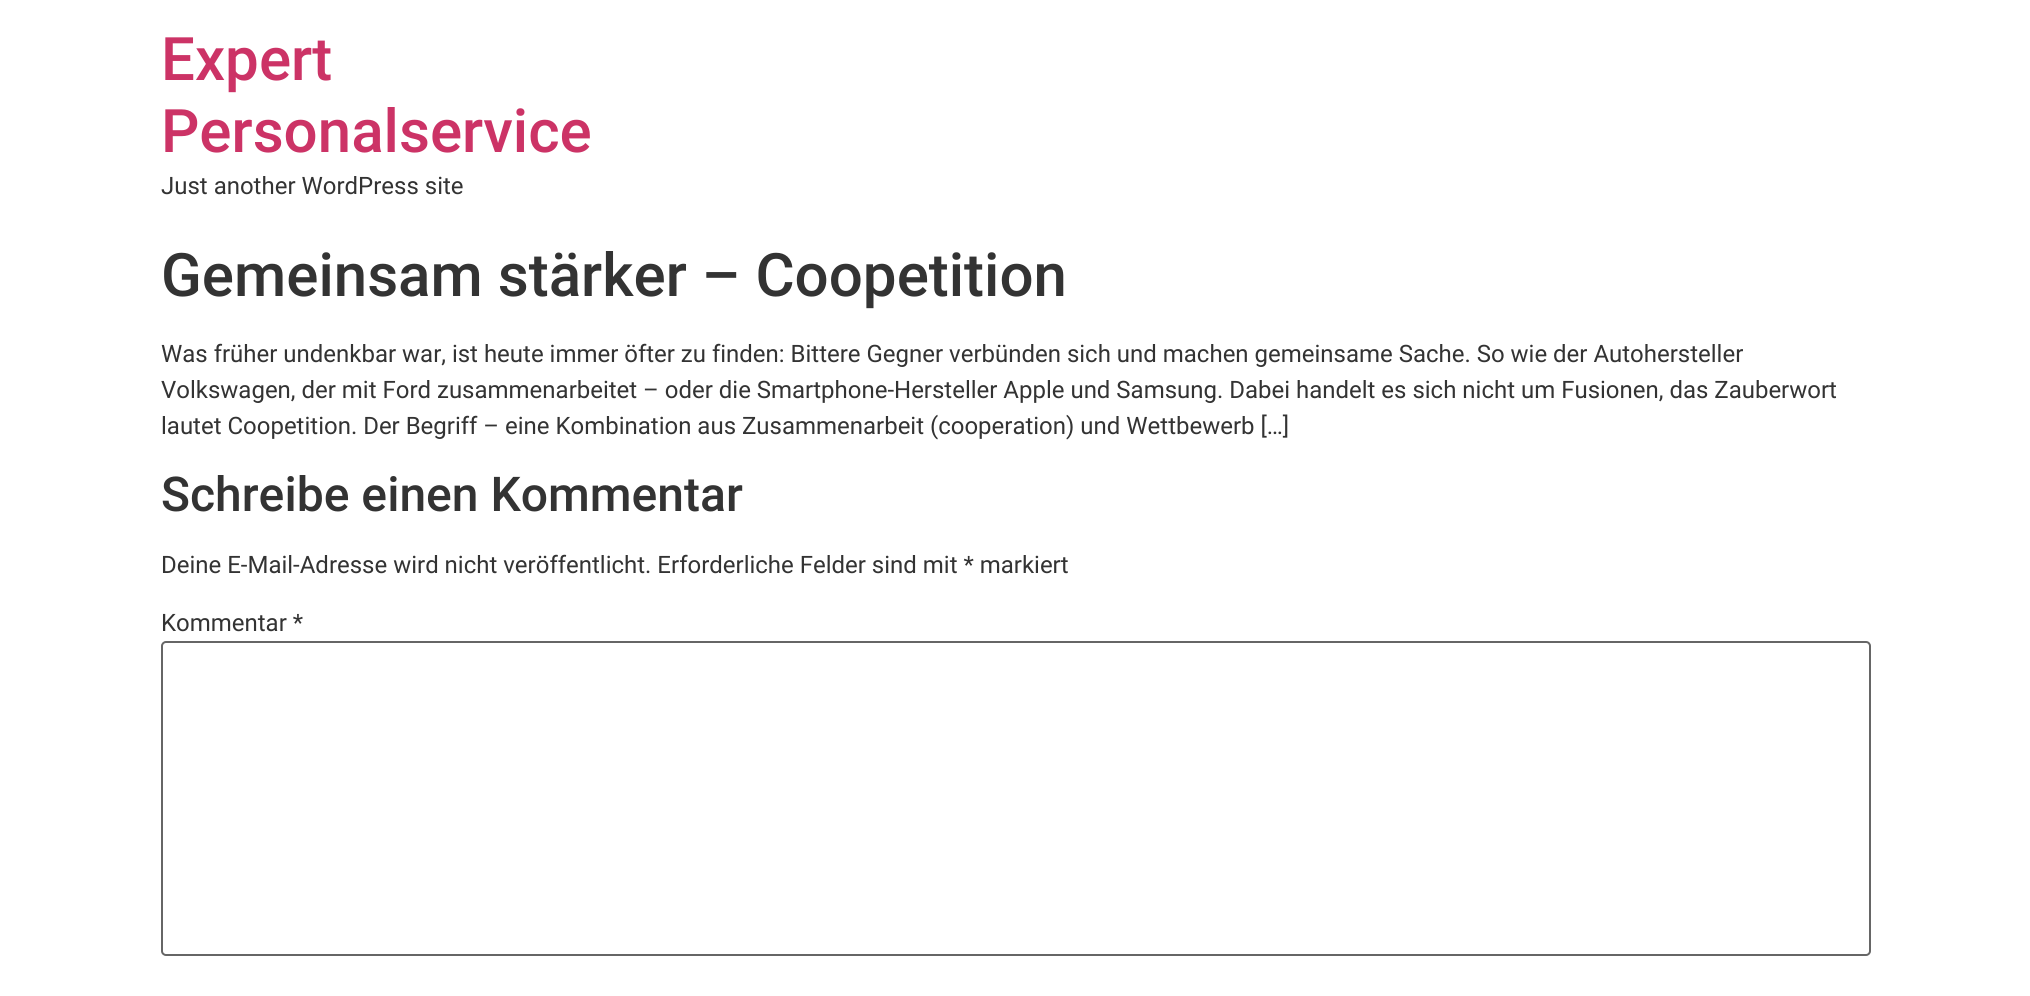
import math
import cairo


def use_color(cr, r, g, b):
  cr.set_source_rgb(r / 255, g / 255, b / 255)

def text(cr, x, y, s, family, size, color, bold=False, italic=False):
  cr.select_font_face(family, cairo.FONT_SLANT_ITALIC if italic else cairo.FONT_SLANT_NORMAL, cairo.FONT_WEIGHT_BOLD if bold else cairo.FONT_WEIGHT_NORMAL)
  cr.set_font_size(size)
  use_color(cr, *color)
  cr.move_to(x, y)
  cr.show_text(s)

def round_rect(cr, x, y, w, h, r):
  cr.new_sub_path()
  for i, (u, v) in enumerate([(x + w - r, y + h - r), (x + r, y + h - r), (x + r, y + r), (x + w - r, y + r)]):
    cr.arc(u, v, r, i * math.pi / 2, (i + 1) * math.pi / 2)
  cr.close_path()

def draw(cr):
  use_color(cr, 255, 255, 255)
  cr.paint()
  round_rect(cr, 162, 642, 1708, 313, 4)
  use_color(cr, 102, 102, 102)
  cr.stroke()
  text(cr, 161, 80, "Expert", "Roboto Medium", 60, (204, 51, 102))
  text(cr, 161, 152, "Personalservice", "Roboto Medium", 60, (204, 51, 102))
  text(cr, 161, 194, "Just another WordPress site", "Roboto", 24, (51, 51, 51))
  text(cr, 161, 296, "Gemeinsam stärker – Coopetition", "Roboto Medium", 60, (51, 51, 51))
  text(cr, 161, 362, "Was früher undenkbar war, ist heute immer öfter zu finden: Bittere Gegner verbünden sich und machen gemeinsame Sache. So wie der Autohersteller", "Roboto", 24, (51, 51, 51))
  text(cr, 161, 398, "Volkswagen, der mit Ford zusammenarbeitet – oder die Smartphone-Hersteller Apple und Samsung. Dabei handelt es sich nicht um Fusionen, das Zauberwort", "Roboto", 24, (51, 51, 51))
  text(cr, 161, 434, "lautet Coopetition. Der Begriff – eine Kombination aus Zusammenarbeit (cooperation) und Wettbewerb […]", "Roboto", 24, (51, 51, 51))
  text(cr, 161, 511, "Schreibe einen Kommentar", "Roboto Medium", 48, (51, 51, 51))
  text(cr, 161, 573, "Deine E-Mail-Adresse wird nicht veröffentlicht. Erforderliche Felder sind mit * markiert", "Roboto", 24, (51, 51, 51))
  text(cr, 161, 631, "Kommentar *", "Roboto", 24, (51, 51, 51))


surface = cairo.ImageSurface(cairo.FORMAT_RGB24, 2030, 996)
cr = cairo.Context(surface)
options = cairo.FontOptions()
options.set_hint_metrics(cairo.HINT_METRICS_OFF)
options.set_hint_style(cairo.HINT_STYLE_NONE)
cr.set_font_options(options)
cr.set_miter_limit(4)
draw(cr)
surface.write_to_png("out.png")
